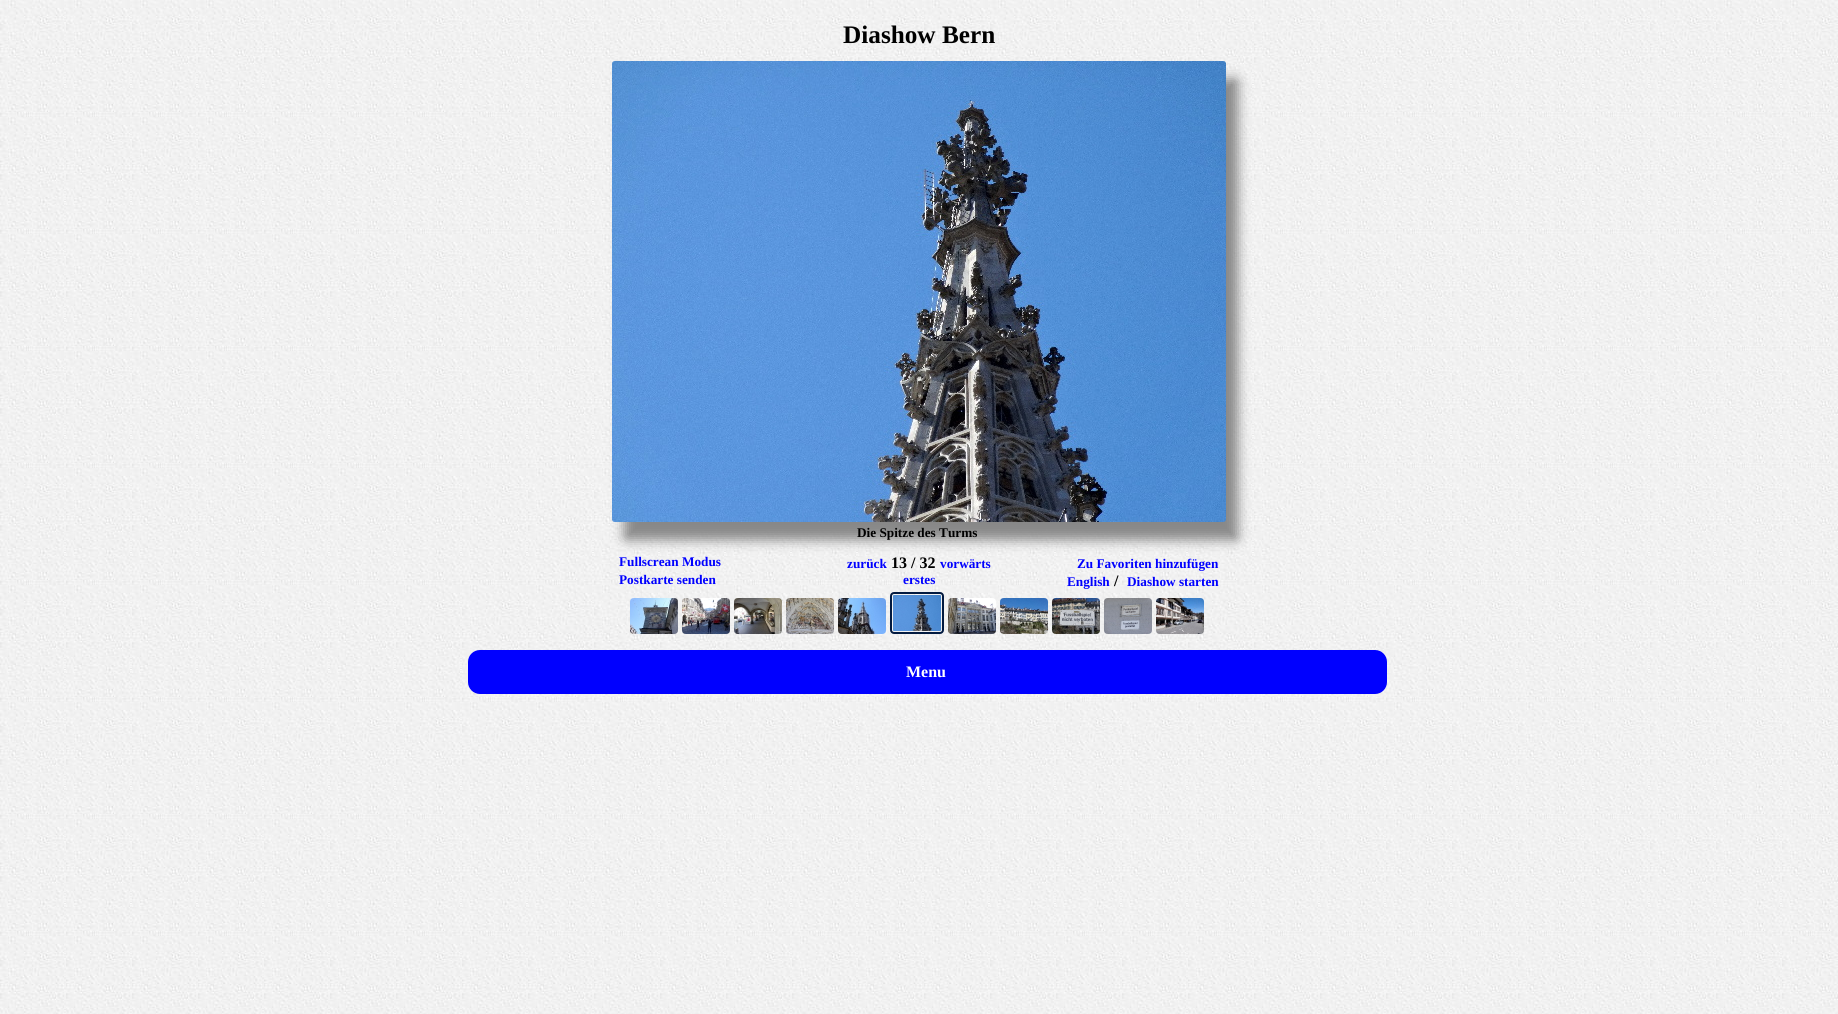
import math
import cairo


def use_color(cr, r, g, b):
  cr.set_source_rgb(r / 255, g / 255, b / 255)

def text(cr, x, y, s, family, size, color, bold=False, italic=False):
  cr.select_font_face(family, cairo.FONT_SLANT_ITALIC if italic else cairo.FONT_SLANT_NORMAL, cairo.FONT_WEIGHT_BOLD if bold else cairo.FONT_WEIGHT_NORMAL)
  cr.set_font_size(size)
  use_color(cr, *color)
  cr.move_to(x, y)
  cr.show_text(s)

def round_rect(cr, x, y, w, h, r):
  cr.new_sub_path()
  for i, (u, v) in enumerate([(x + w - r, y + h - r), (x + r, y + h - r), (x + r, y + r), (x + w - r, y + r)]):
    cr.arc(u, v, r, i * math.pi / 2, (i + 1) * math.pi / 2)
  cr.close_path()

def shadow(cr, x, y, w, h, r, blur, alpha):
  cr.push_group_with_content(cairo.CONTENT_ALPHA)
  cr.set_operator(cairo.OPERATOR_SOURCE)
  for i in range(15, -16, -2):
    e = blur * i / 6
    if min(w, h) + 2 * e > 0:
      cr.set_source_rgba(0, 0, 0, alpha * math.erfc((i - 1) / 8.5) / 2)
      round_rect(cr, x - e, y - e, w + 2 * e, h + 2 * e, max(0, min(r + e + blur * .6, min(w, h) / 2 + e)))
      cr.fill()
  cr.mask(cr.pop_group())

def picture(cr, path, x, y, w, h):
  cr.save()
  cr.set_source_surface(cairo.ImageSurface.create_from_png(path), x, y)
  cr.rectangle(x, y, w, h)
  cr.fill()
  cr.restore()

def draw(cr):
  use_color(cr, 255, 255, 255)
  cr.paint()
  picture(cr, "img_01.png", 0, 0, 1838, 1014)
  use_color(cr, 136, 136, 136)
  shadow(cr, 624, 79, 614, 461, 3, 6, 1)
  picture(cr, "img_02.png", 612, 61, 614, 461)
  round_rect(cr, 891, 593, 52, 40, 3)
  use_color(cr, 2, 26, 64)
  cr.stroke()
  picture(cr, "img_03.png", 630, 598, 48, 36)
  picture(cr, "img_04.png", 682, 598, 48, 36)
  picture(cr, "img_05.png", 734, 598, 48, 36)
  picture(cr, "img_06.png", 786, 598, 48, 36)
  picture(cr, "img_07.png", 838, 598, 48, 36)
  picture(cr, "img_08.png", 893, 595, 48, 36)
  picture(cr, "img_09.png", 948, 598, 48, 36)
  picture(cr, "img_10.png", 1000, 598, 48, 36)
  picture(cr, "img_11.png", 1052, 598, 48, 36)
  picture(cr, "img_12.png", 1104, 598, 48, 36)
  picture(cr, "img_13.png", 1156, 598, 48, 36)
  use_color(cr, 0, 0, 255)
  round_rect(cr, 468, 650, 919, 44, 12)
  cr.fill()
  text(cr, 843, 43, "Diashow Bern", "Liberation Serif", 25.25, (0, 0, 0), bold=True)
  text(cr, 857, 537, "Die Spitze des Turms", "Liberation Serif", 13.25, (0, 0, 0), bold=True)
  text(cr, 619, 566, "Fullscrean Modus", "Liberation Serif", 13.25, (0, 0, 255), bold=True)
  text(cr, 847, 568, "zurück", "Liberation Serif", 13.25, (0, 0, 255), bold=True)
  text(cr, 891, 568, "13 / 32", "Liberation Serif", 16, (0, 0, 0), bold=True)
  text(cr, 940, 568, "vorwärts", "Liberation Serif", 13.25, (0, 0, 255), bold=True)
  text(cr, 1077, 568, "Zu Favoriten hinzufügen", "Liberation Serif", 13.25, (0, 0, 255), bold=True)
  text(cr, 619, 584, "Postkarte senden", "Liberation Serif", 13.25, (0, 0, 255), bold=True)
  text(cr, 903, 584, "erstes", "Liberation Serif", 13.25, (0, 0, 255), bold=True)
  text(cr, 1067, 586, "English", "Liberation Serif", 13.25, (0, 0, 255), bold=True)
  text(cr, 1114, 586, "/", "Liberation Serif", 16, (0, 0, 0), bold=True)
  text(cr, 1127, 586, "Diashow starten", "Liberation Serif", 13.25, (0, 0, 255), bold=True)
  text(cr, 906, 677, "Menu", "Liberation Serif", 16, (255, 255, 255), bold=True)


surface = cairo.ImageSurface(cairo.FORMAT_RGB24, 1838, 1014)
cr = cairo.Context(surface)
options = cairo.FontOptions()
options.set_hint_metrics(cairo.HINT_METRICS_OFF)
options.set_hint_style(cairo.HINT_STYLE_NONE)
cr.set_font_options(options)
cr.set_miter_limit(4)
draw(cr)
surface.write_to_png("out.png")
